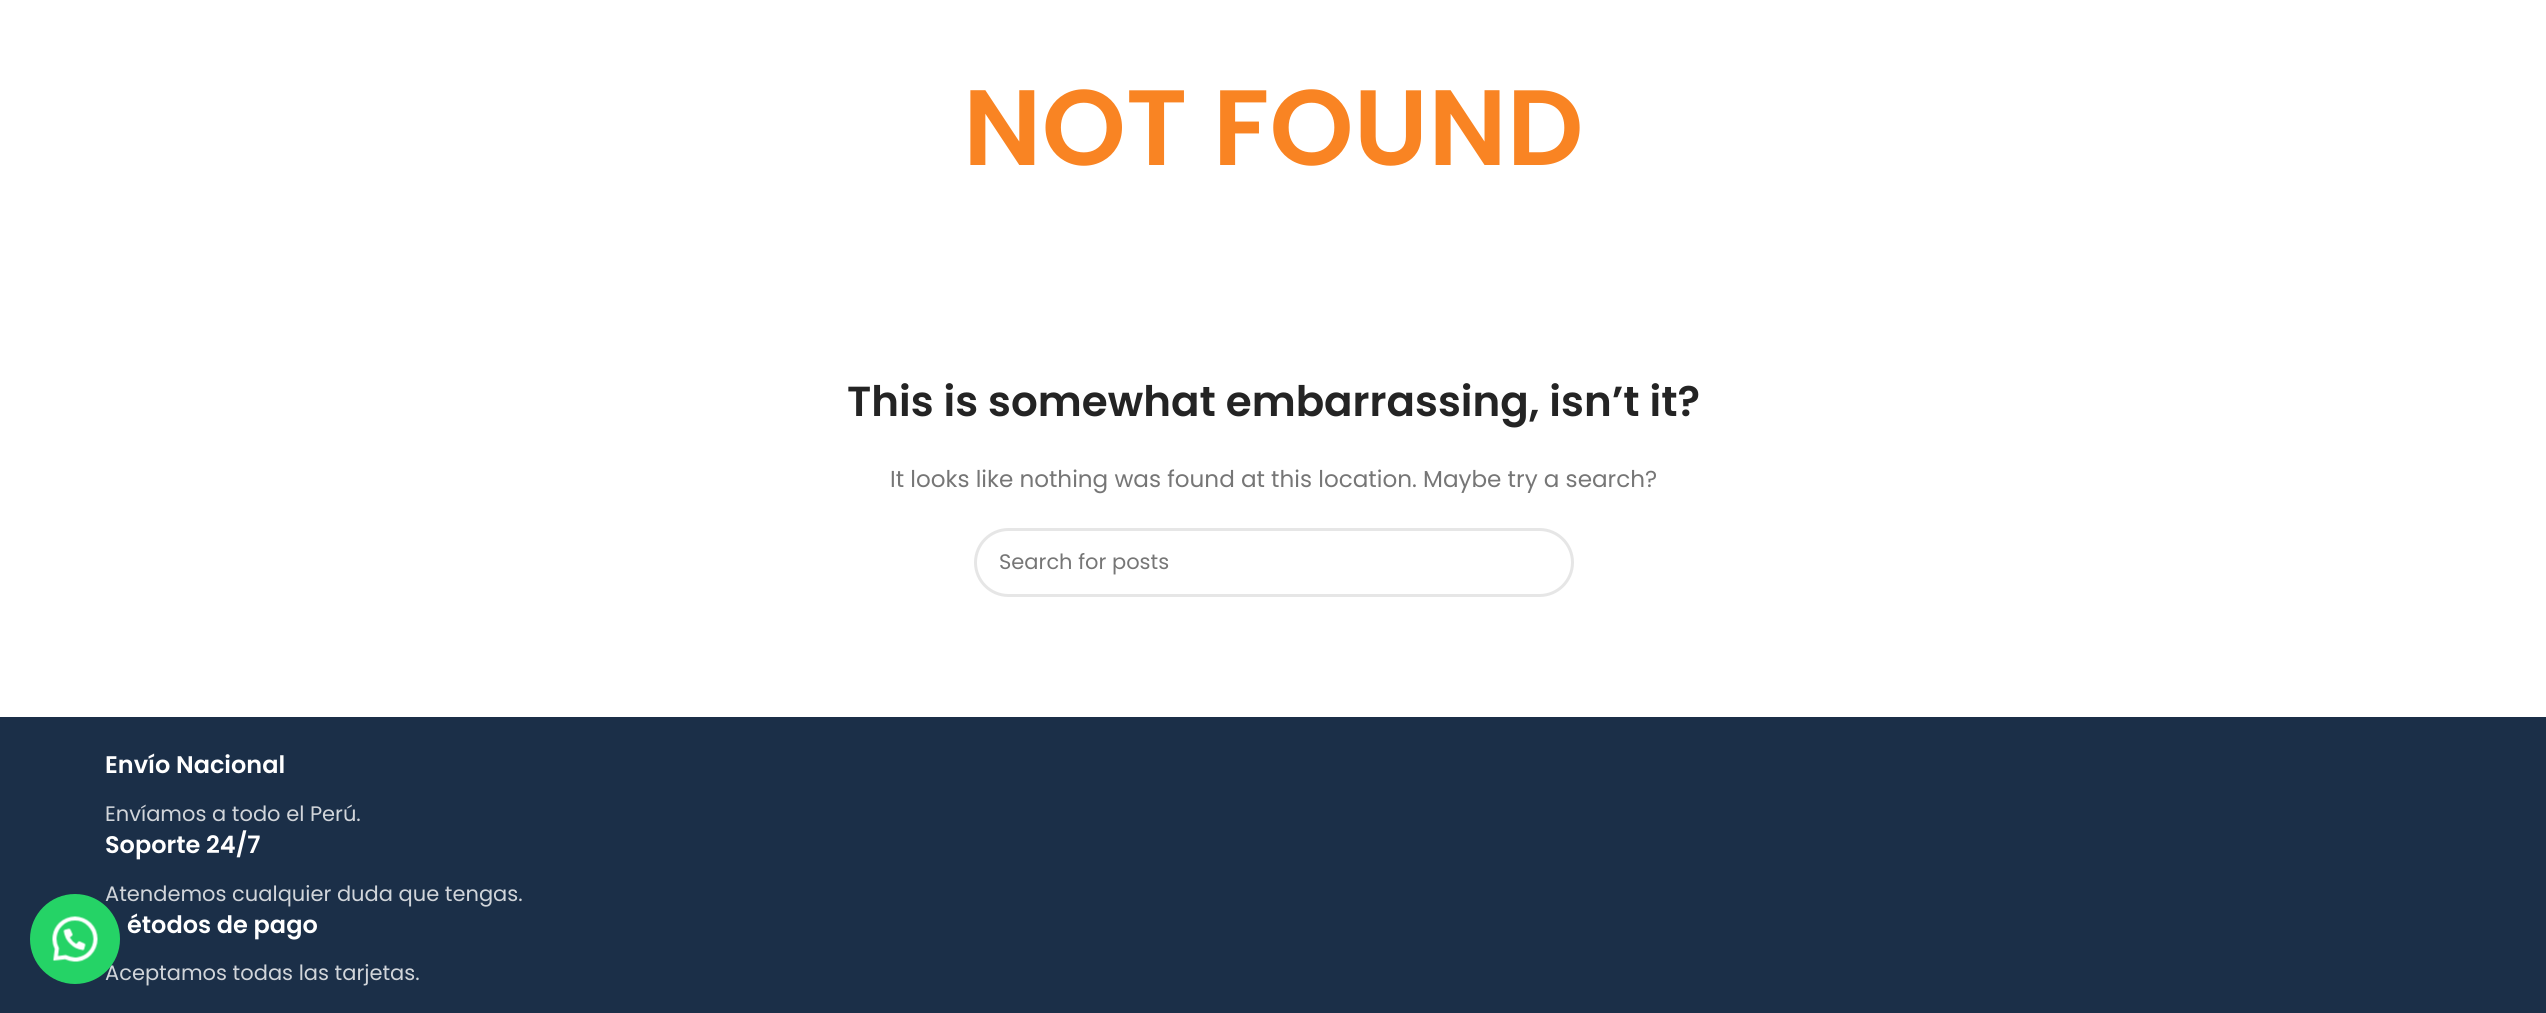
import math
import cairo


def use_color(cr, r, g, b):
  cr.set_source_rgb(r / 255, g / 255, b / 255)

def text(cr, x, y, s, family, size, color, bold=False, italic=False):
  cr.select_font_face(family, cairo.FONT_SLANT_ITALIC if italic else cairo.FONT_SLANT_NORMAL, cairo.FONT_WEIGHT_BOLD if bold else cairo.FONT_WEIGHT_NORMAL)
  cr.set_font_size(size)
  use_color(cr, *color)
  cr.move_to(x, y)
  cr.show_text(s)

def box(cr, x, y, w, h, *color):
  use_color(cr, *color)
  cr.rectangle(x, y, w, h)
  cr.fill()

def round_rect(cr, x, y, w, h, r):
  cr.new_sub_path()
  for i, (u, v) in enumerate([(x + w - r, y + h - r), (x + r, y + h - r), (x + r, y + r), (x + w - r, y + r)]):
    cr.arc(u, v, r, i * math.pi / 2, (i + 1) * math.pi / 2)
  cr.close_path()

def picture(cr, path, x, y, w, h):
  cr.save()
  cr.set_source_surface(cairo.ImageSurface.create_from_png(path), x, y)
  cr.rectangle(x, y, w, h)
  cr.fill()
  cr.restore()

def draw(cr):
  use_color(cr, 255, 255, 255)
  cr.paint()
  round_rect(cr, 975.5, 529.5, 597, 66, 33)
  use_color(cr, 230, 230, 230)
  cr.set_line_width(3)
  cr.stroke()
  box(cr, 0, 717, 2546, 296, 27, 47, 72)
  text(cr, 963, 165, "NOT FOUND", "Poppins SemiBold", 107, (249, 132, 35))
  text(cr, 847, 416, "This is somewhat embarrassing, isn’t it?", "Poppins SemiBold", 42, (36, 36, 36))
  text(cr, 890, 487, "It looks like nothing was found at this location. Maybe try a search?", "Poppins", 23.1, (118, 118, 118))
  text(cr, 999, 569, "Search for posts", "Poppins", 21, (118, 118, 118))
  text(cr, 105, 773, "Envío Nacional", "Poppins SemiBold", 24, (255, 255, 255))
  text(cr, 105, 821, "Envíamos a todo el Perú.", "Poppins", 21, (209, 213, 218))
  text(cr, 105, 853, "Soporte 24/7", "Poppins SemiBold", 24, (255, 255, 255))
  text(cr, 105, 901, "Atendemos cualquier duda que tengas.", "Poppins", 21, (209, 213, 218))
  text(cr, 127, 933, "étodos de pago", "Poppins SemiBold", 24, (255, 255, 255))
  text(cr, 105, 980, "Aceptamos todas las tarjetas.", "Poppins", 21, (209, 213, 218))
  use_color(cr, 37, 211, 102)
  cr.new_path()
  cr.arc(75, 939, 45, 0, 2 * math.pi)
  cr.fill()
  picture(cr, "img_01.png", 52, 916, 46, 46)


surface = cairo.ImageSurface(cairo.FORMAT_RGB24, 2546, 1013)
cr = cairo.Context(surface)
options = cairo.FontOptions()
options.set_hint_metrics(cairo.HINT_METRICS_OFF)
options.set_hint_style(cairo.HINT_STYLE_NONE)
cr.set_font_options(options)
cr.set_miter_limit(4)
draw(cr)
surface.write_to_png("out.png")
